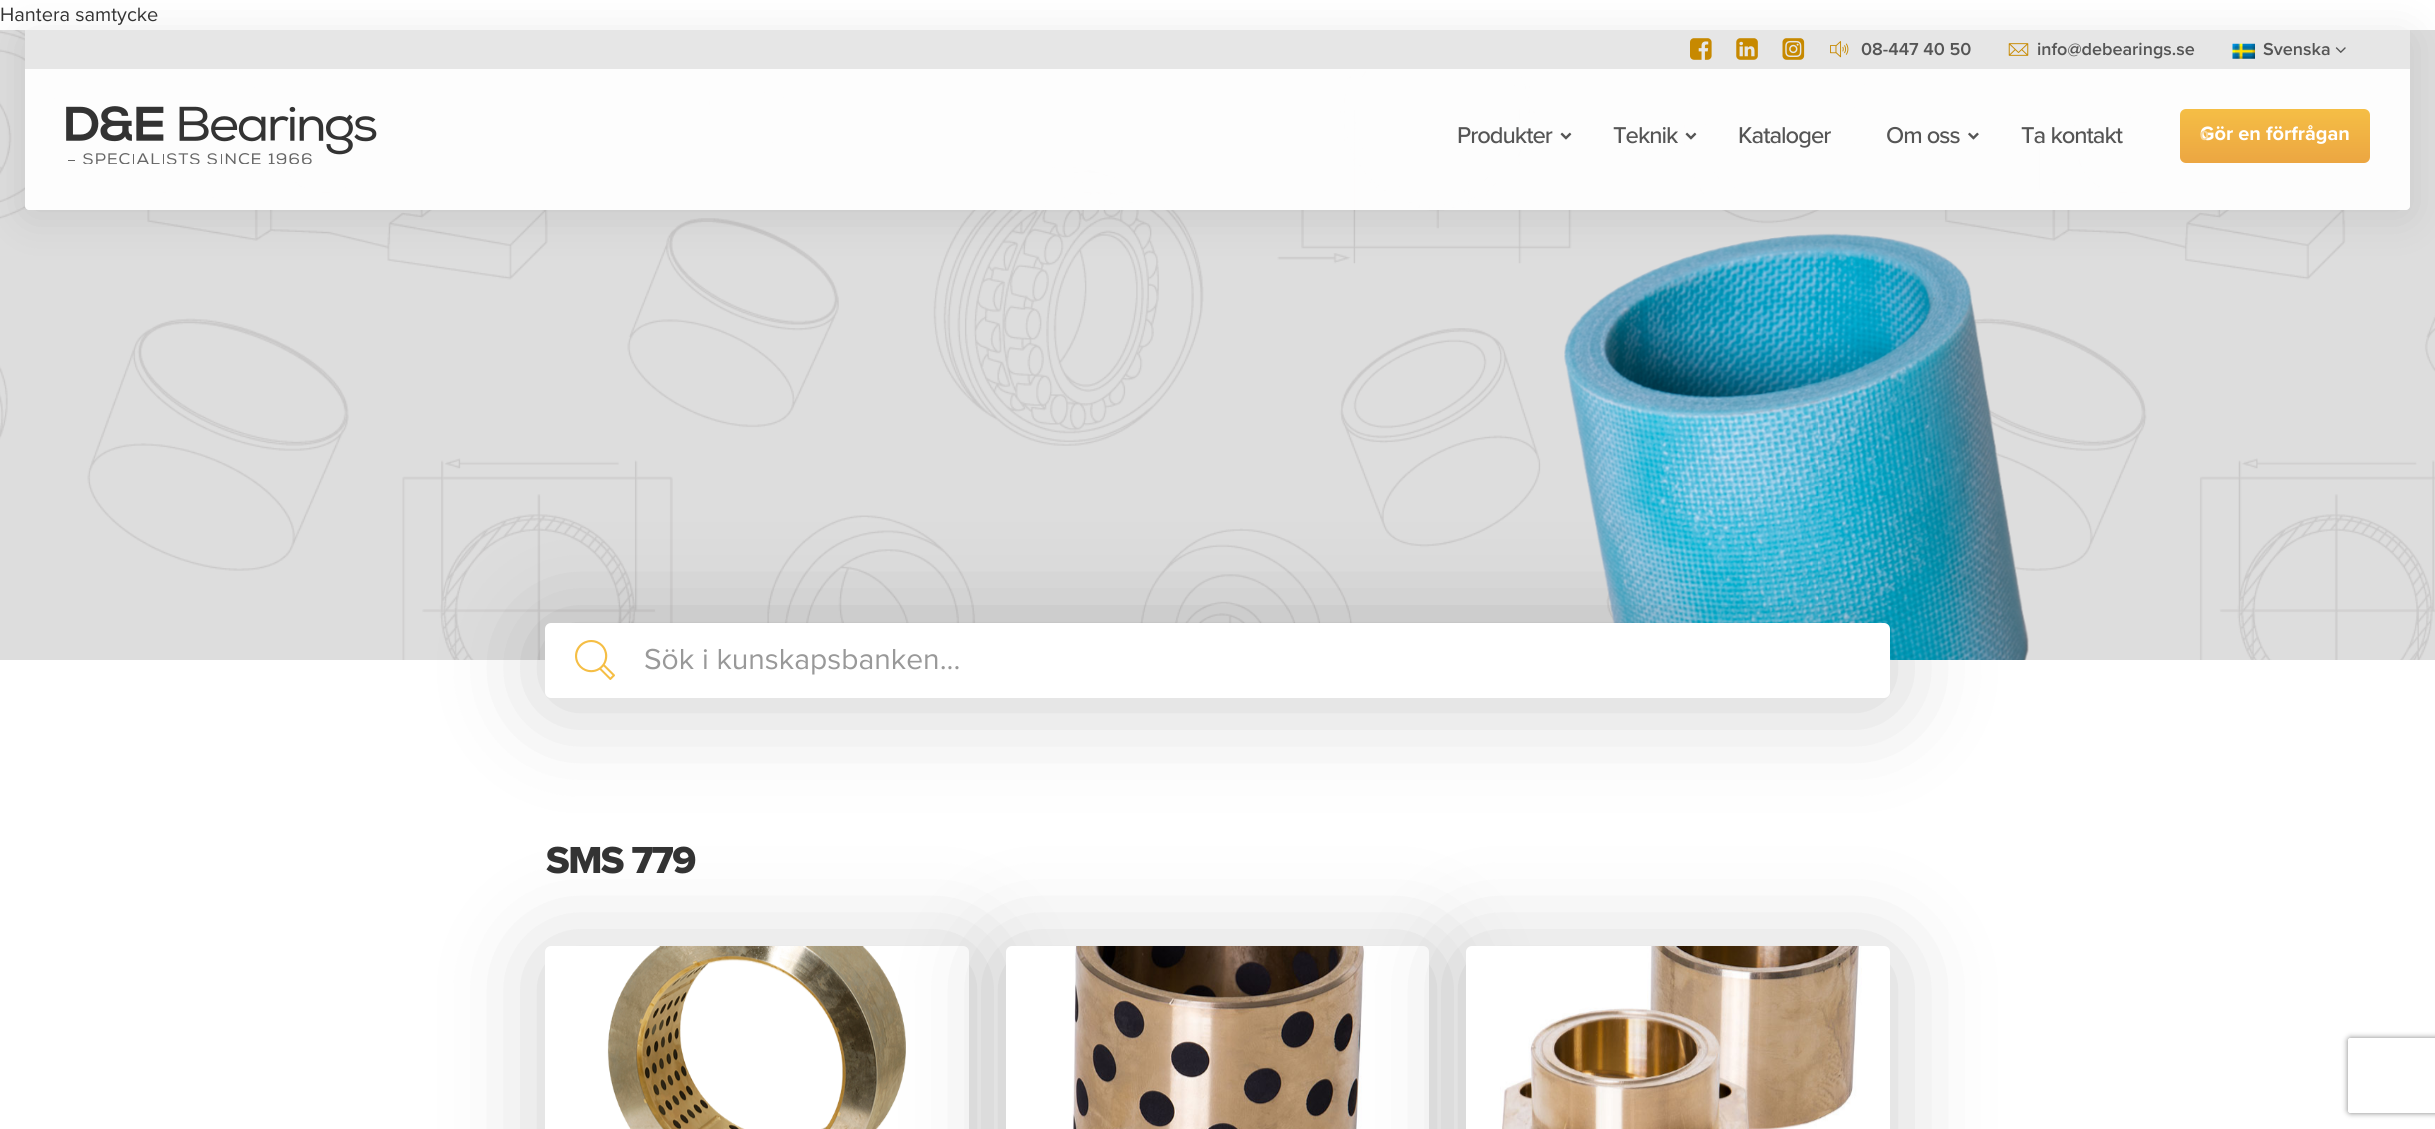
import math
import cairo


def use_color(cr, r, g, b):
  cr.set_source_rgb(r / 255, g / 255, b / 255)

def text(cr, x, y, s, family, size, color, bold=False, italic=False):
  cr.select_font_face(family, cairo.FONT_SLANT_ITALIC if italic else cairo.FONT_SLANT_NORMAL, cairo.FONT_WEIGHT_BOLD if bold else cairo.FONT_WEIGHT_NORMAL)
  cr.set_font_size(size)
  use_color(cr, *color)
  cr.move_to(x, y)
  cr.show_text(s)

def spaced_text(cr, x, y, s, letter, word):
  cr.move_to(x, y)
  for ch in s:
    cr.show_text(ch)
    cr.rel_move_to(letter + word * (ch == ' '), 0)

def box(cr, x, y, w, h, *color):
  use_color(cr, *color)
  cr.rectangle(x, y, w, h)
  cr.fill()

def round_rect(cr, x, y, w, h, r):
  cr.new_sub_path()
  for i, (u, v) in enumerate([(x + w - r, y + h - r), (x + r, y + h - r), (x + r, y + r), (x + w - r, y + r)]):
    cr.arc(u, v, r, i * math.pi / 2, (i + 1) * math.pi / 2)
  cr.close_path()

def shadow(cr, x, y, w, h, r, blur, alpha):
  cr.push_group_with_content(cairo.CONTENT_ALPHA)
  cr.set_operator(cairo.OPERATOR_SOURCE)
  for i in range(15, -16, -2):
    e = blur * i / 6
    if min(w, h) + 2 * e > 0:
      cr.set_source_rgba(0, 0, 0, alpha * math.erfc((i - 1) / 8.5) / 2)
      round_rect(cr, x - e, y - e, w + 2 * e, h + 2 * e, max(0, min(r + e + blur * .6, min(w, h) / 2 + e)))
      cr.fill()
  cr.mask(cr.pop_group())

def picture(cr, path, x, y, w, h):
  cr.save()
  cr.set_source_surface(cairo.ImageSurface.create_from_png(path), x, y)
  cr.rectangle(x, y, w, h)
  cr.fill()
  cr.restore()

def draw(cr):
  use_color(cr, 255, 255, 255)
  cr.paint()
  box(cr, 0, 30, 2435, 630, 221, 221, 221)
  picture(cr, "img_12.png", 0, 30, 2435, 630)
  picture(cr, "img_13.png", 1564, 233, 465, 427)
  cr.save()
  cr.set_fill_rule(cairo.FILL_RULE_EVEN_ODD)
  cr.new_path()
  cr.move_to(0, 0)
  cr.line_to(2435, 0)
  cr.line_to(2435, 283)
  cr.line_to(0, 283)
  cr.close_path()
  cr.move_to(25, 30)
  cr.line_to(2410, 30)
  cr.line_to(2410, 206)
  cr.curve_to(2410, 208, 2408, 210, 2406, 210)
  cr.line_to(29, 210)
  cr.curve_to(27, 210, 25, 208, 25, 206)
  cr.close_path()
  cr.clip()
  use_color(cr, 0, 0, 0)
  shadow(cr, 25, 36, 2385, 180, 4, 22, 0.1)
  cr.restore()
  cr.set_source_rgba(1, 1, 1, 0.95)
  cr.new_path()
  cr.move_to(25, 30)
  cr.line_to(2410, 30)
  cr.line_to(2410, 206)
  cr.curve_to(2410, 208, 2408, 210, 2406, 210)
  cr.line_to(29, 210)
  cr.curve_to(27, 210, 25, 208, 25, 206)
  cr.close_path()
  cr.fill()
  box(cr, 25, 30, 2385, 39, 230, 230, 230)
  picture(cr, "img_01.png", 1690, 38, 22, 22)
  picture(cr, "img_02.png", 1736, 38, 22, 22)
  picture(cr, "img_03.png", 1782, 38, 23, 22)
  picture(cr, "img_04.png", 1830, 41, 19, 17)
  picture(cr, "img_05.png", 2008, 43, 21, 13)
  picture(cr, "img_06.png", 2232, 43, 23, 16)
  picture(cr, "img_07.png", 2335, 47, 11, 6)
  picture(cr, "img_08.png", 66, 106, 311, 58)
  picture(cr, "img_09.png", 1560, 132, 12, 8)
  picture(cr, "img_10.png", 1685, 132, 12, 8)
  picture(cr, "img_11.png", 1968, 132, 11, 8)
  gradient = cairo.LinearGradient(2275, 109, 2275, 163)
  gradient.add_color_stop_rgba(0, 0.961, 0.745, 0.271, 1)
  gradient.add_color_stop_rgba(1, 0.925, 0.651, 0.259, 1)
  cr.set_source(gradient)
  round_rect(cr, 2180, 109, 190, 54, 6)
  cr.fill()
  use_color(cr, 0, 0, 0)
  shadow(cr, 545, 630, 1345, 75, 6, 50, 0.2)
  use_color(cr, 255, 255, 255)
  round_rect(cr, 545, 623, 1345, 75, 6)
  cr.fill()
  picture(cr, "img_14.png", 575, 640, 40, 40)
  use_color(cr, 0, 0, 0)
  shadow(cr, 545, 954, 424, 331, 6, 50, 0.2)
  use_color(cr, 255, 255, 255)
  round_rect(cr, 545, 946, 424, 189, 6)
  cr.fill()
  picture(cr, "img_15.png", 607, 946, 299, 183)
  use_color(cr, 0, 0, 0)
  shadow(cr, 1006, 954, 423, 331, 6, 50, 0.2)
  use_color(cr, 255, 255, 255)
  round_rect(cr, 1006, 946, 423, 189, 6)
  cr.fill()
  picture(cr, "img_16.png", 1072, 946, 294, 183)
  use_color(cr, 0, 0, 0)
  shadow(cr, 1466, 954, 424, 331, 6, 50, 0.2)
  use_color(cr, 255, 255, 255)
  round_rect(cr, 1466, 946, 424, 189, 6)
  cr.fill()
  picture(cr, "img_17.png", 1500, 946, 362, 183)
  cr.save()
  cr.set_fill_rule(cairo.FILL_RULE_EVEN_ODD)
  cr.new_path()
  cr.move_to(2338, 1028)
  cr.line_to(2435, 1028)
  cr.line_to(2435, 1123)
  cr.line_to(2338, 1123)
  cr.close_path()
  cr.move_to(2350.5, 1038)
  cr.line_to(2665.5, 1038)
  cr.curve_to(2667, 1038, 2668, 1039, 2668, 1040.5)
  cr.line_to(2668, 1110.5)
  cr.curve_to(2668, 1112, 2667, 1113, 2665.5, 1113)
  cr.line_to(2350.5, 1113)
  cr.curve_to(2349, 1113, 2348, 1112, 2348, 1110.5)
  cr.line_to(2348, 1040.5)
  cr.curve_to(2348, 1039, 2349, 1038, 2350.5, 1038)
  cr.close_path()
  cr.clip()
  use_color(cr, 128, 128, 128)
  shadow(cr, 2348, 1038, 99, 75, 2.5, 3, 1)
  cr.restore()
  text(cr, 0, 21, "Hantera samtycke", "Proxima Nova", 20, (51, 51, 51))
  text(cr, 1861, 55, "08-447 40 50", "Proxima Nova SemiBold", 18, (85, 85, 85))
  text(cr, 2037, 55, "info@debearings.se", "Proxima Nova SemiBold", 18, (85, 85, 85))
  text(cr, 2263, 55, "Svenska", "Proxima Nova SemiBold", 18, (85, 85, 85))
  cr.select_font_face("Proxima Nova Medium")
  cr.set_font_size(23.75)
  spaced_text(cr, 1457, 143, "Produkter", -1, 0)
  spaced_text(cr, 1613, 143, "Teknik", -1, 0)
  spaced_text(cr, 1738, 143, "Kataloger", -1, 0)
  spaced_text(cr, 1886, 143, "Om oss", -1, 0)
  spaced_text(cr, 2021, 143, "Ta kontakt", -1, 0)
  text(cr, 2200, 140, "Gör en förfrågan", "Proxima Nova", 20, (255, 255, 255), bold=True)
  text(cr, 2200, 140, "0", "Proxima Nova", 14, (247, 214, 156), bold=True)
  text(cr, 644, 669, "Sök i kunskapsbanken...", "Proxima Nova", 30, (153, 153, 153))
  cr.select_font_face("Proxima Nova ExtraBold")
  cr.set_font_size(39)
  use_color(cr, 51, 51, 51)
  spaced_text(cr, 546, 873, "SMS 779", -1.5, 0)


surface = cairo.ImageSurface(cairo.FORMAT_RGB24, 2435, 1129)
cr = cairo.Context(surface)
options = cairo.FontOptions()
options.set_hint_metrics(cairo.HINT_METRICS_OFF)
options.set_hint_style(cairo.HINT_STYLE_NONE)
cr.set_font_options(options)
cr.set_miter_limit(4)
draw(cr)
surface.write_to_png("out.png")
